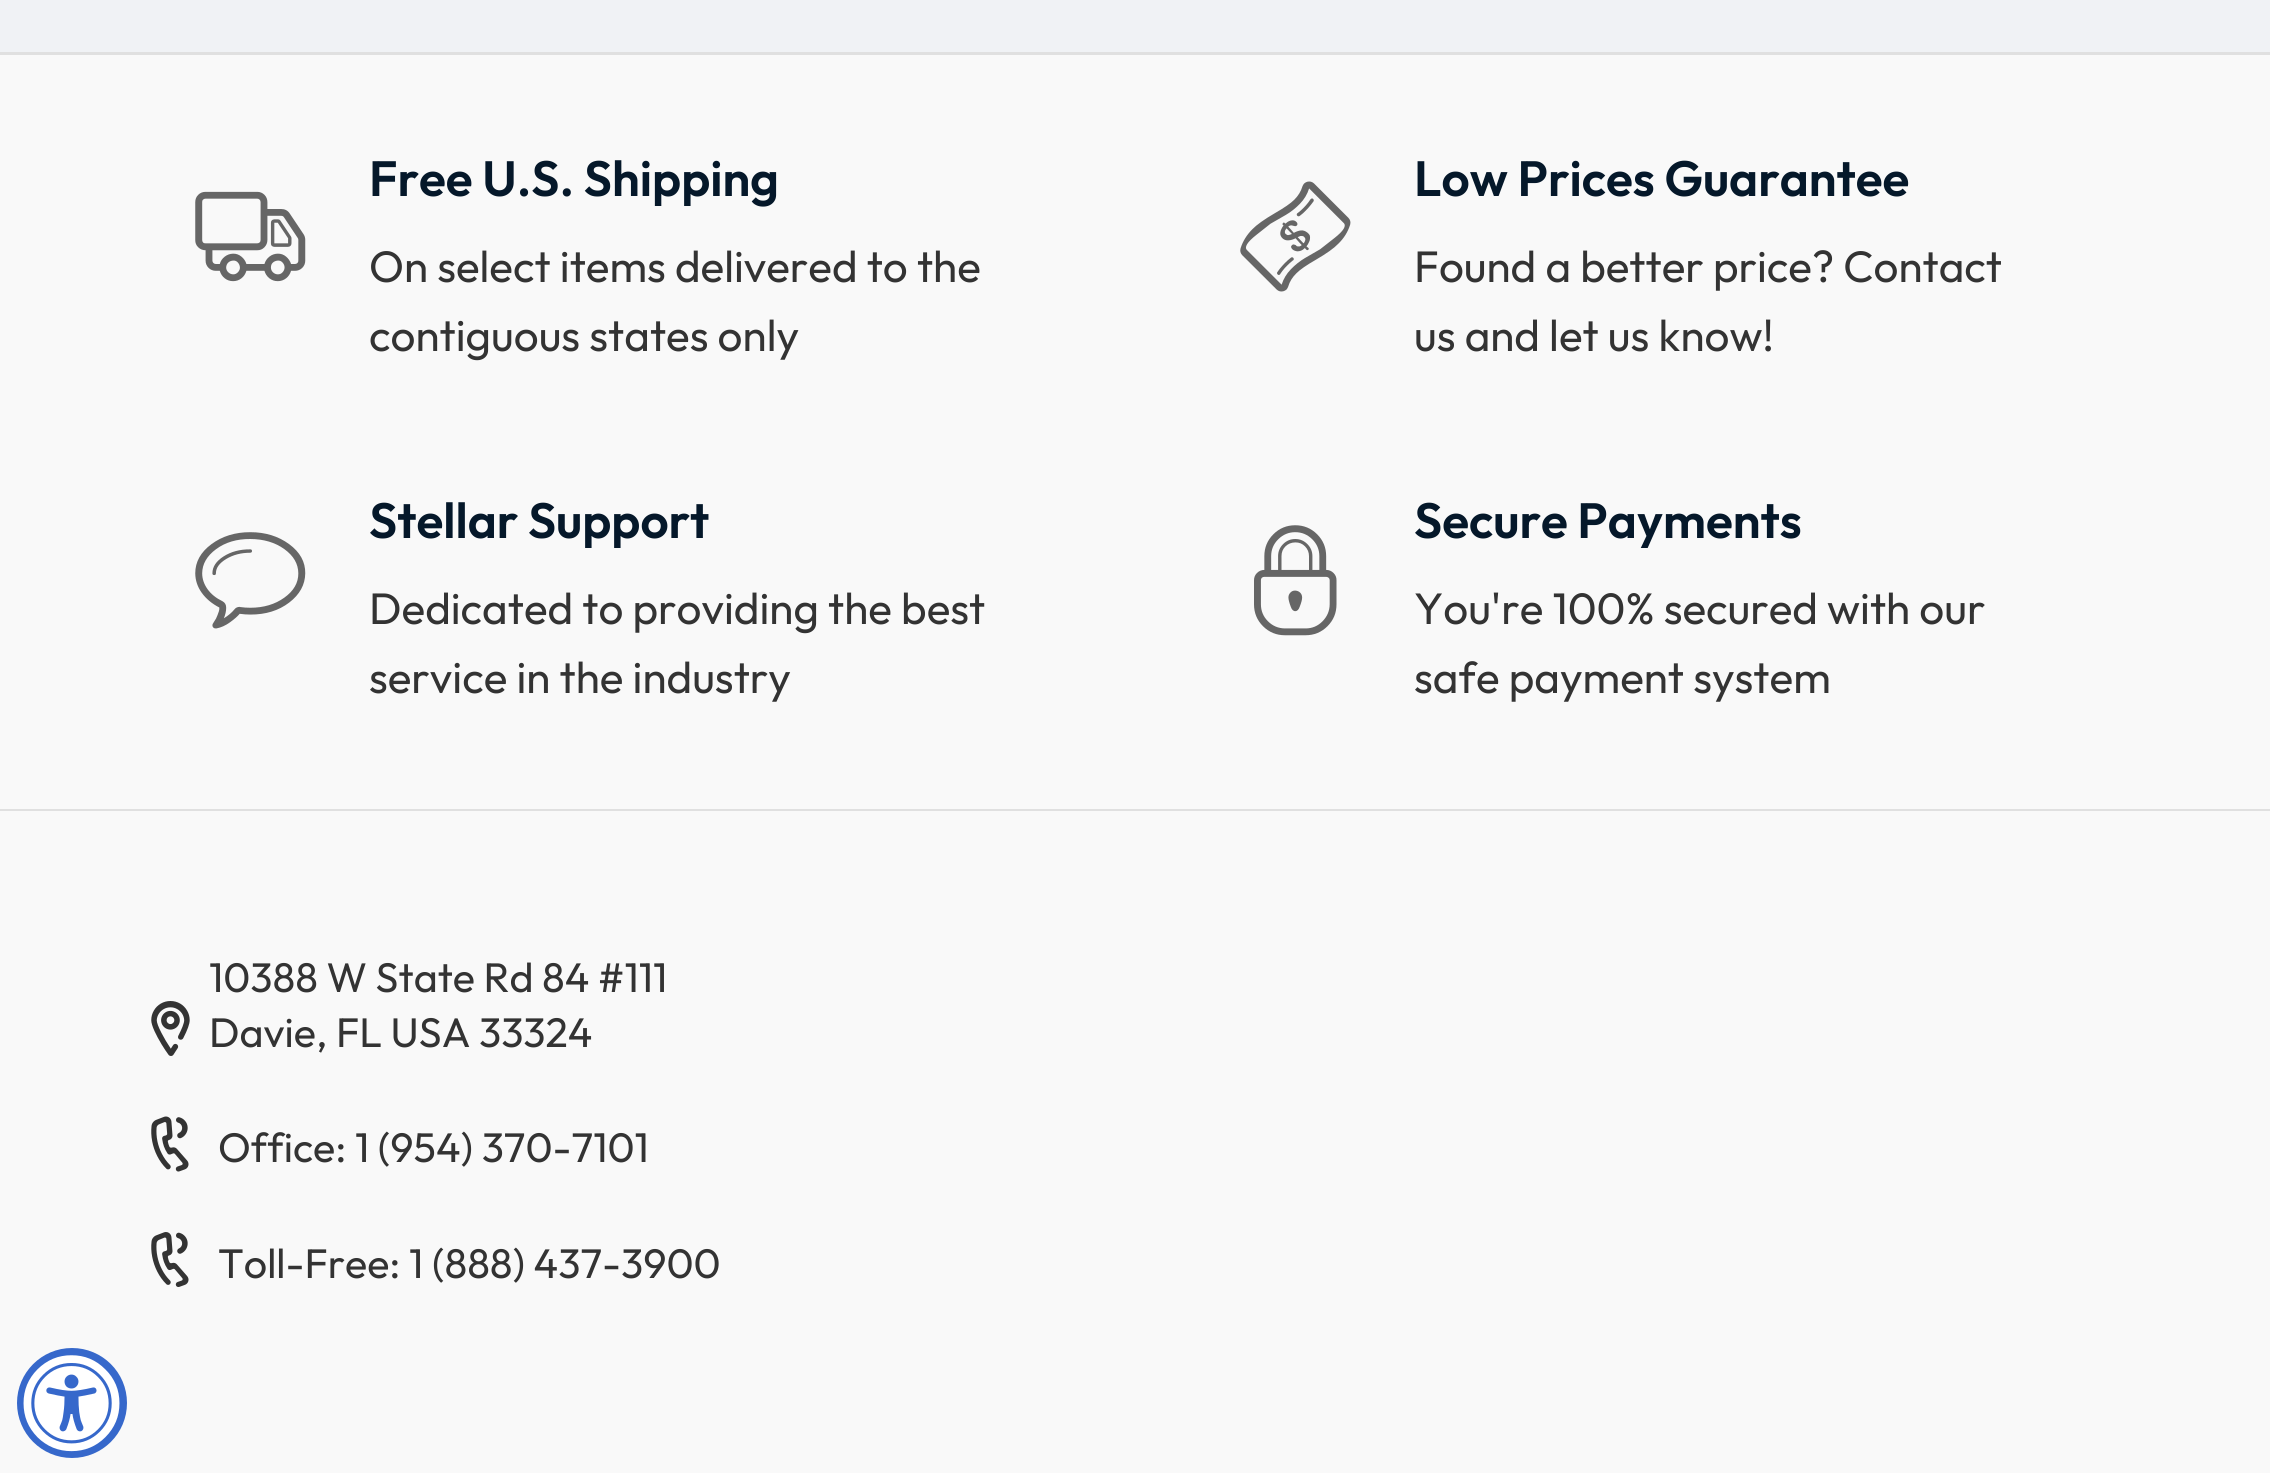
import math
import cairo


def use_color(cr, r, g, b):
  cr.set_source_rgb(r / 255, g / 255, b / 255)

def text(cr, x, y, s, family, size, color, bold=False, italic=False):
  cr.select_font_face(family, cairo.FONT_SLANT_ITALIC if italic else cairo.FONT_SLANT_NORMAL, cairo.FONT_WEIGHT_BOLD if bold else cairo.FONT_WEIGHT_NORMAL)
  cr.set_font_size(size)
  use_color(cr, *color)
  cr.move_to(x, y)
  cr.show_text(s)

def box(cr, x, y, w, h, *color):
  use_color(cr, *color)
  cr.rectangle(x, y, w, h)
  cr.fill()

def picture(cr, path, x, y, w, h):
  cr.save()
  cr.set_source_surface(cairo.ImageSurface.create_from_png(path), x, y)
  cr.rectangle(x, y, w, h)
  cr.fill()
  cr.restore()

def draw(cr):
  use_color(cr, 240, 242, 245)
  cr.paint()
  box(cr, 0, 55, 2270, 754, 249, 249, 249)
  box(cr, 0, 52, 2270, 3, 224, 224, 224)
  box(cr, 0, 809, 2270, 2, 224, 224, 224)
  picture(cr, "img_01.png", 195, 191, 111, 91)
  picture(cr, "img_02.png", 1240, 181, 111, 111)
  picture(cr, "img_03.png", 195, 532, 111, 97)
  picture(cr, "img_04.png", 1254, 525, 83, 111)
  box(cr, 0, 811, 2270, 662, 249, 249, 249)
  picture(cr, "img_05.png", 151, 1001, 39, 55)
  picture(cr, "img_06.png", 151, 1116, 38, 56)
  picture(cr, "img_07.png", 151, 1232, 38, 55)
  use_color(cr, 54, 104, 203)
  cr.arc(72, 1403, 55, 0, 2 * math.pi)
  cr.fill()
  picture(cr, "img_08.png", 23, 1355, 97, 97)
  text(cr, 369, 196, "Free U.S. Shipping", "Outfit SemiBold", 49.5, (5, 24, 42))
  text(cr, 369, 282, "On select items delivered to the", "Outfit", 44, (51, 51, 51))
  text(cr, 369, 351, "contiguous states only", "Outfit", 44, (51, 51, 51))
  text(cr, 1414, 196, "Low Prices Guarantee", "Outfit SemiBold", 49.5, (5, 24, 42))
  text(cr, 1414, 282, "Found a better price? Contact", "Outfit", 44, (51, 51, 51))
  text(cr, 1414, 351, "us and let us know!", "Outfit", 44, (51, 51, 51))
  text(cr, 369, 538, "Stellar Support", "Outfit SemiBold", 49.5, (5, 24, 42))
  text(cr, 369, 624, "Dedicated to providing the best", "Outfit", 44, (51, 51, 51))
  text(cr, 369, 693, "service in the industry", "Outfit", 44, (51, 51, 51))
  text(cr, 1414, 538, "Secure Payments", "Outfit SemiBold", 49.5, (5, 24, 42))
  text(cr, 1414, 624, "You're 100% secured with our", "Outfit", 44, (51, 51, 51))
  text(cr, 1414, 693, "safe payment system", "Outfit", 44, (51, 51, 51))
  text(cr, 209, 992, "10388 W State Rd 84 #111", "Outfit", 41.25, (51, 51, 51))
  text(cr, 209, 1047, "Davie, FL USA 33324", "Outfit", 41.25, (51, 51, 51))
  text(cr, 218, 1162, "Office: 1 (954) 370-7101", "Outfit", 41.25, (51, 51, 51))
  text(cr, 218, 1278, "Toll-Free: 1 (888) 437-3900", "Outfit", 41.25, (51, 51, 51))


surface = cairo.ImageSurface(cairo.FORMAT_RGB24, 2270, 1473)
cr = cairo.Context(surface)
options = cairo.FontOptions()
options.set_hint_metrics(cairo.HINT_METRICS_OFF)
options.set_hint_style(cairo.HINT_STYLE_NONE)
cr.set_font_options(options)
cr.set_miter_limit(4)
draw(cr)
surface.write_to_png("out.png")
